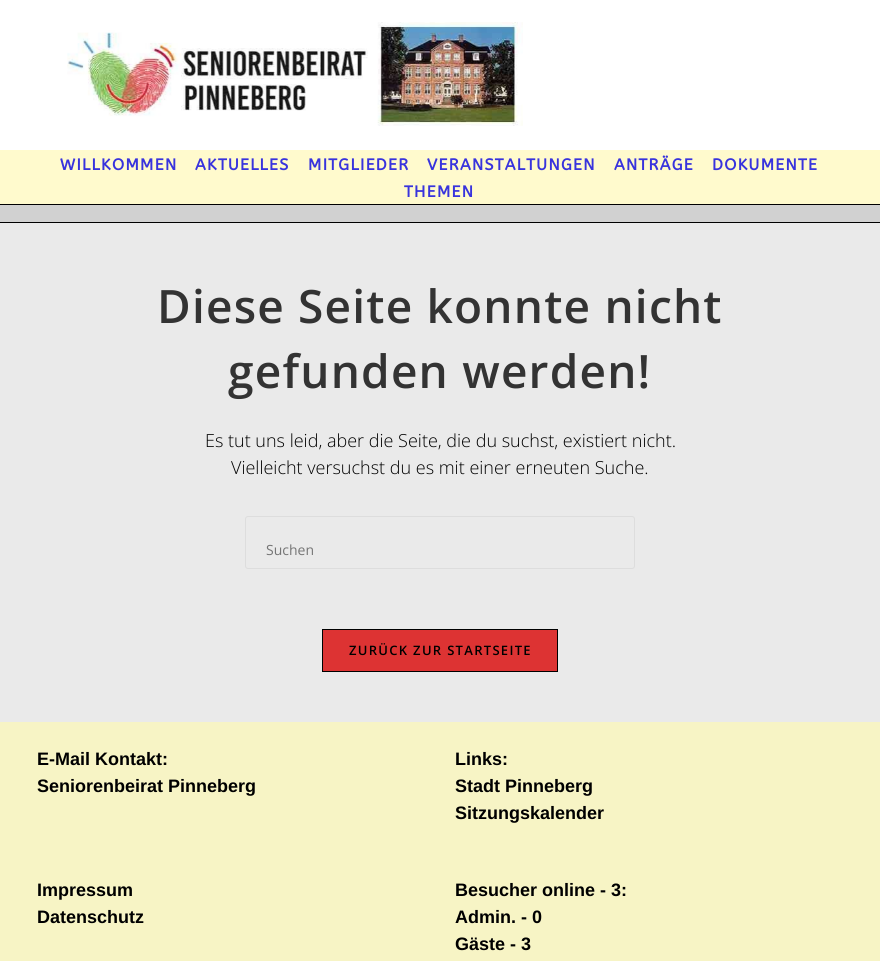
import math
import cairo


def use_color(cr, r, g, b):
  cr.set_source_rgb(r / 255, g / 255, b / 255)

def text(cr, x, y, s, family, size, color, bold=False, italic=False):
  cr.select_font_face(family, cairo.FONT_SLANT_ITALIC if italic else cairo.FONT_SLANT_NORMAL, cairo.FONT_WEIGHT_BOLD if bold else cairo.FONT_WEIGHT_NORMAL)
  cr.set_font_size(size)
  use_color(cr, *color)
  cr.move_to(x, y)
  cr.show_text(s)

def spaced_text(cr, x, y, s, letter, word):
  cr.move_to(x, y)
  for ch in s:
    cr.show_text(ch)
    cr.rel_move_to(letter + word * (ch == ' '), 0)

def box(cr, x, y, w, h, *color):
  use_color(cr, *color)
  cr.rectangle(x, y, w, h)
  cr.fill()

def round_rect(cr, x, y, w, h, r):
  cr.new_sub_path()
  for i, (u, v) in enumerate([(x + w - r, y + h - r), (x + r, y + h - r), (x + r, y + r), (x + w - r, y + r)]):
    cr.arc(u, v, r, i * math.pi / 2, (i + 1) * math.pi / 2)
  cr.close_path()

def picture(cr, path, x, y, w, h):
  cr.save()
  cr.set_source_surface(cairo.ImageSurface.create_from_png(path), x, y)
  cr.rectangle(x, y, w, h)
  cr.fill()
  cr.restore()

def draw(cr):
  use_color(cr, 234, 234, 234)
  cr.paint()
  box(cr, 0, 204, 880, 1, 0, 0, 0)
  box(cr, 0, 0, 880, 150, 255, 255, 255)
  picture(cr, "img_01.png", 67, 22, 456, 104)
  box(cr, 0, 150, 880, 54, 255, 250, 205)
  box(cr, 0, 205, 880, 17, 209, 209, 209)
  box(cr, 0, 222, 880, 1, 0, 0, 0)
  round_rect(cr, 245.5, 516.5, 389, 52, 2.5)
  use_color(cr, 221, 221, 221)
  cr.set_line_width(1)
  cr.stroke()
  use_color(cr, 221, 51, 51)
  cr.rectangle(322.5, 629.5, 235, 42)
  cr.fill_preserve()
  use_color(cr, 0, 0, 0)
  cr.stroke()
  box(cr, 0, 722, 880, 239, 247, 244, 197)
  cr.select_font_face("ABeeZee", cairo.FONT_SLANT_NORMAL, cairo.FONT_WEIGHT_BOLD)
  cr.set_font_size(16)
  use_color(cr, 56, 51, 221)
  spaced_text(cr, 60, 170, "WILLKOMMEN", 1.3, 0)
  spaced_text(cr, 195, 170, "AKTUELLES", 1.3, 0)
  spaced_text(cr, 308, 170, "MITGLIEDER", 1.3, 0)
  spaced_text(cr, 427, 170, "VERANSTALTUNGEN", 1.3, 0)
  spaced_text(cr, 614, 170, "ANTRÄGE", 1.3, 0)
  spaced_text(cr, 712, 170, "DOKUMENTE", 1.3, 0)
  spaced_text(cr, 404, 197, "THEMEN", 1.3, 0)
  cr.select_font_face("Open Sans SemiBold")
  cr.set_font_size(46)
  use_color(cr, 51, 51, 51)
  spaced_text(cr, 157, 323, "Diese Seite konnte nicht", 1.2, 0)
  spaced_text(cr, 228, 388, "gefunden werden!", 1.2, 0)
  text(cr, 205, 447, "Es tut uns leid, aber die Seite, die du suchst, existiert nicht.", "Open Sans Light", 18, (0, 0, 0))
  text(cr, 231, 474, "Vielleicht versuchst du es mit einer erneuten Suche.", "Open Sans Light", 18, (0, 0, 0))
  text(cr, 266, 555, "Suchen", "Open Sans", 14, (117, 117, 117))
  cr.select_font_face("Open Sans SemiBold")
  cr.set_font_size(13)
  use_color(cr, 0, 0, 0)
  spaced_text(cr, 349, 655, "ZURÜCK ZUR STARTSEITE", 1.3, 0)
  text(cr, 37, 765, "E-Mail Kontakt:", "Liberation Sans", 18, (0, 0, 0), bold=True)
  text(cr, 37, 792, "Seniorenbeirat Pinneberg", "Liberation Sans", 18, (0, 0, 0), bold=True)
  text(cr, 455, 765, "Links:", "Liberation Sans", 18, (0, 0, 0), bold=True)
  text(cr, 455, 792, "Stadt Pinneberg", "Liberation Sans", 18, (0, 0, 0), bold=True)
  text(cr, 455, 819, "Sitzungskalender", "Liberation Sans", 18, (0, 0, 0), bold=True)
  text(cr, 37, 896, "Impressum", "Liberation Sans", 18, (0, 0, 0), bold=True)
  text(cr, 37, 923, "Datenschutz", "Liberation Sans", 18, (0, 0, 0), bold=True)
  text(cr, 455, 896, "Besucher online - 3:", "Liberation Sans", 18, (0, 0, 0), bold=True)
  text(cr, 455, 923, "Admin. - 0", "Liberation Sans", 18, (0, 0, 0), bold=True)
  text(cr, 455, 950, "Gäste - 3", "Liberation Sans", 18, (0, 0, 0), bold=True)


surface = cairo.ImageSurface(cairo.FORMAT_RGB24, 880, 961)
cr = cairo.Context(surface)
options = cairo.FontOptions()
options.set_hint_metrics(cairo.HINT_METRICS_OFF)
options.set_hint_style(cairo.HINT_STYLE_NONE)
cr.set_font_options(options)
cr.set_miter_limit(4)
draw(cr)
surface.write_to_png("out.png")
